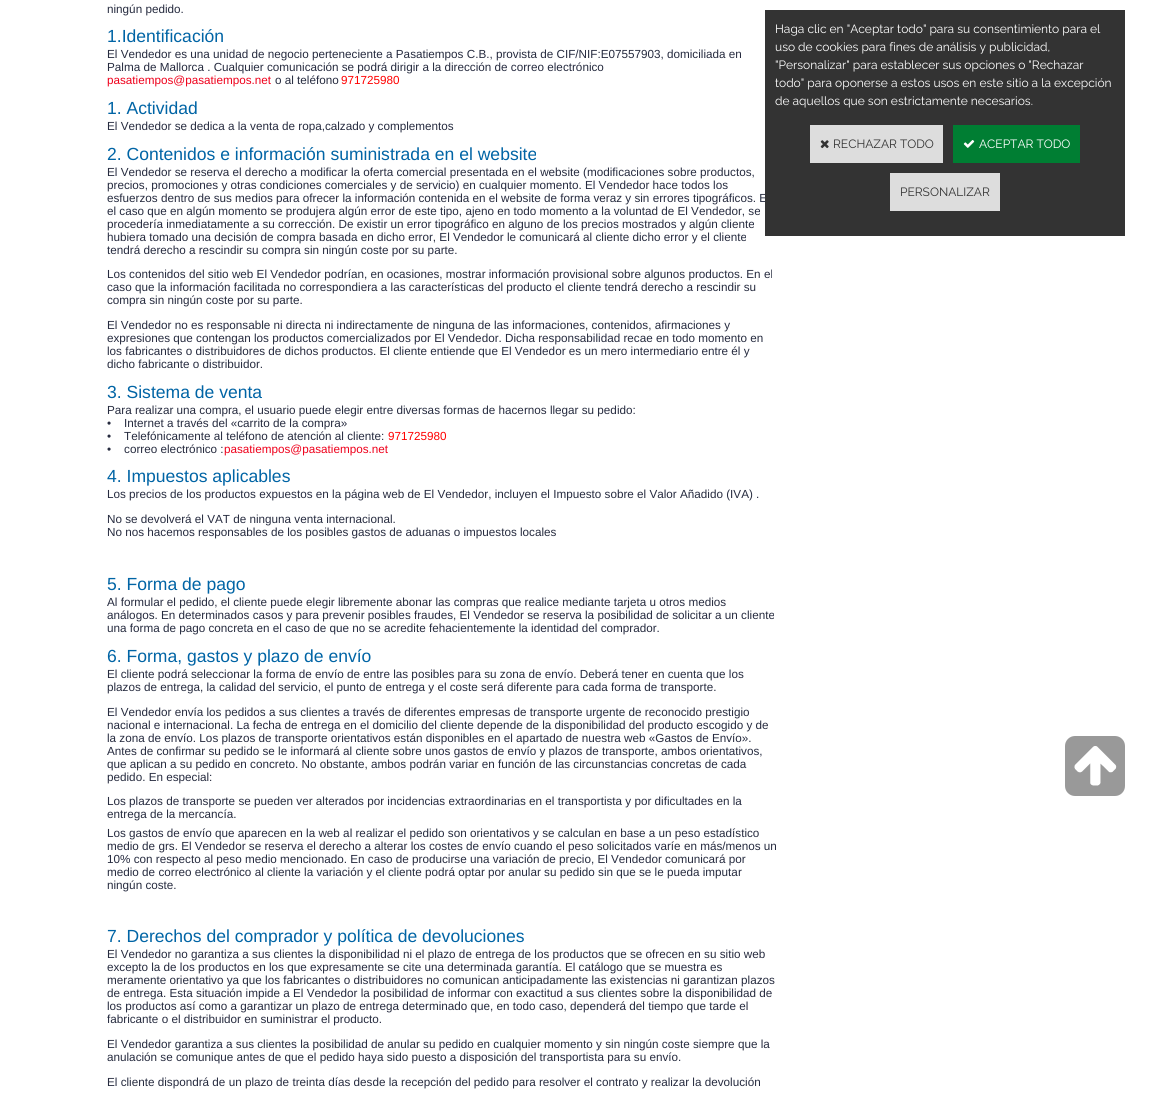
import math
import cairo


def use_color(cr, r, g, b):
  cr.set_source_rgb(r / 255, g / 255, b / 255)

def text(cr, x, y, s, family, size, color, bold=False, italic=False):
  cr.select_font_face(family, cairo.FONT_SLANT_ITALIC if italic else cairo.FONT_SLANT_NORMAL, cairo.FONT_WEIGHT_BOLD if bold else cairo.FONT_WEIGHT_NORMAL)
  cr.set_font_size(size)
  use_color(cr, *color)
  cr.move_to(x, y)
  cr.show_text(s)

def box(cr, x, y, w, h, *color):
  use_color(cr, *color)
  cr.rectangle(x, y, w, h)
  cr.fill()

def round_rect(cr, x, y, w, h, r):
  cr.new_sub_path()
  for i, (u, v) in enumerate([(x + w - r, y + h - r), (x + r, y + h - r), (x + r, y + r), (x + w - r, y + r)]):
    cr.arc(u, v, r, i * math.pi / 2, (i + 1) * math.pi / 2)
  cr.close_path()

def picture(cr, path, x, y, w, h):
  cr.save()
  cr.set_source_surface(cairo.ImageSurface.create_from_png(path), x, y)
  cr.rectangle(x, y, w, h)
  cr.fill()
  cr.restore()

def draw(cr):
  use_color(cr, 255, 255, 255)
  cr.paint()
  use_color(cr, 153, 153, 153)
  round_rect(cr, 1065, 736, 60, 60, 10)
  cr.fill()
  picture(cr, "img_03.png", 1074, 746, 43, 40)
  text(cr, 107, 13, "ningún pedido.", "Liberation Sans", 11.7, (38, 43, 63))
  text(cr, 107, 42, "1.Identificación", "Liberation Sans", 17.55, (0, 100, 165))
  text(cr, 107, 58, "El Vendedor es una unidad de negocio perteneciente a Pasatiempos C.B., provista de CIF/NIF:E07557903, domiciliada en", "Liberation Sans", 11.7, (38, 43, 63))
  text(cr, 107, 71, "Palma de Mallorca . Cualquier comunicación se podrá dirigir a la dirección de correo electrónico", "Liberation Sans", 11.7, (38, 43, 63))
  text(cr, 107, 84, "pasatiempos@pasatiempos.net", "Liberation Sans", 11.7, (239, 0, 27))
  text(cr, 275, 84, "o al teléfono", "Liberation Sans", 11.7, (38, 43, 63))
  text(cr, 341, 84, "971725980", "Liberation Sans", 11.7, (255, 0, 0))
  text(cr, 107, 114, "1. Actividad", "Liberation Sans", 17.55, (0, 100, 165))
  text(cr, 107, 130, "El Vendedor se dedica a la venta de ropa,calzado y complementos", "Liberation Sans", 11.7, (38, 43, 63))
  text(cr, 107, 160, "2. Contenidos e información suministrada en el website", "Liberation Sans", 17.55, (0, 100, 165))
  text(cr, 107, 176, "El Vendedor se reserva el derecho a modificar la oferta comercial presentada en el website (modificaciones sobre productos,", "Liberation Sans", 11.7, (38, 43, 63))
  text(cr, 107, 189, "precios, promociones y otras condiciones comerciales y de servicio) en cualquier momento. El Vendedor hace todos los", "Liberation Sans", 11.7, (38, 43, 63))
  text(cr, 107, 202, "esfuerzos dentro de sus medios para ofrecer la información contenida en el website de forma veraz y sin errores tipográficos. E", "Liberation Sans", 11.7, (38, 43, 63))
  text(cr, 107, 215, "el caso que en algún momento se produjera algún error de este tipo, ajeno en todo momento a la voluntad de El Vendedor, se", "Liberation Sans", 11.7, (38, 43, 63))
  text(cr, 107, 228, "procedería inmediatamente a su corrección. De existir un error tipográfico en alguno de los precios mostrados y algún cliente", "Liberation Sans", 11.7, (38, 43, 63))
  text(cr, 107, 241, "hubiera tomado una decisión de compra basada en dicho error, El Vendedor le comunicará al cliente dicho error y el cliente", "Liberation Sans", 11.7, (38, 43, 63))
  text(cr, 107, 254, "tendrá derecho a rescindir su compra sin ningún coste por su parte.", "Liberation Sans", 11.7, (38, 43, 63))
  text(cr, 107, 278, "Los contenidos del sitio web El Vendedor podrían, en ocasiones, mostrar información provisional sobre algunos productos. En el", "Liberation Sans", 11.7, (38, 43, 63))
  text(cr, 107, 291, "caso que la información facilitada no correspondiera a las características del producto el cliente tendrá derecho a rescindir su", "Liberation Sans", 11.7, (38, 43, 63))
  text(cr, 107, 304, "compra sin ningún coste por su parte.", "Liberation Sans", 11.7, (38, 43, 63))
  text(cr, 107, 329, "El Vendedor no es responsable ni directa ni indirectamente de ninguna de las informaciones, contenidos, afirmaciones y", "Liberation Sans", 11.7, (38, 43, 63))
  text(cr, 107, 342, "expresiones que contengan los productos comercializados por El Vendedor. Dicha responsabilidad recae en todo momento en", "Liberation Sans", 11.7, (38, 43, 63))
  text(cr, 107, 355, "los fabricantes o distribuidores de dichos productos. El cliente entiende que El Vendedor es un mero intermediario entre él y", "Liberation Sans", 11.7, (38, 43, 63))
  text(cr, 107, 368, "dicho fabricante o distribuidor.", "Liberation Sans", 11.7, (38, 43, 63))
  text(cr, 107, 398, "3. Sistema de venta", "Liberation Sans", 17.55, (0, 100, 165))
  text(cr, 107, 414, "Para realizar una compra, el usuario puede elegir entre diversas formas de hacernos llegar su pedido:", "Liberation Sans", 11.7, (38, 43, 63))
  text(cr, 107, 427, "•    Internet a través del «carrito de la compra»", "Liberation Sans", 11.7, (38, 43, 63))
  text(cr, 107, 440, "•    Telefónicamente al teléfono de atención al cliente:", "Liberation Sans", 11.7, (38, 43, 63))
  text(cr, 388, 440, "971725980", "Liberation Sans", 11.7, (255, 0, 0))
  text(cr, 107, 453, "•    correo electrónico :", "Liberation Sans", 11.7, (38, 43, 63))
  text(cr, 224, 453, "pasatiempos@pasatiempos.net", "Liberation Sans", 11.7, (239, 0, 27))
  text(cr, 107, 482, "4. Impuestos aplicables", "Liberation Sans", 17.55, (0, 100, 165))
  text(cr, 107, 498, "Los precios de los productos expuestos en la página web de El Vendedor, incluyen el Impuesto sobre el Valor Añadido (IVA) .", "Liberation Sans", 11.7, (38, 43, 63))
  text(cr, 107, 523, "No se devolverá el VAT de ninguna venta internacional.", "Liberation Sans", 11.7, (38, 43, 63))
  text(cr, 107, 536, "No nos hacemos responsables de los posibles gastos de aduanas o impuestos locales", "Liberation Sans", 11.7, (38, 43, 63))
  text(cr, 107, 590, "5. Forma de pago", "Liberation Sans", 17.55, (0, 100, 165))
  text(cr, 107, 606, "Al formular el pedido, el cliente puede elegir libremente abonar las compras que realice mediante tarjeta u otros medios", "Liberation Sans", 11.7, (38, 43, 63))
  text(cr, 107, 619, "análogos. En determinados casos y para prevenir posibles fraudes, El Vendedor se reserva la posibilidad de solicitar a un cliente", "Liberation Sans", 11.7, (38, 43, 63))
  text(cr, 107, 632, "una forma de pago concreta en el caso de que no se acredite fehacientemente la identidad del comprador.", "Liberation Sans", 11.7, (38, 43, 63))
  text(cr, 107, 662, "6. Forma, gastos y plazo de envío", "Liberation Sans", 17.55, (0, 100, 165))
  text(cr, 107, 678, "El cliente podrá seleccionar la forma de envío de entre las posibles para su zona de envío. Deberá tener en cuenta que los", "Liberation Sans", 11.7, (38, 43, 63))
  text(cr, 107, 691, "plazos de entrega, la calidad del servicio, el punto de entrega y el coste será diferente para cada forma de transporte.", "Liberation Sans", 11.7, (38, 43, 63))
  text(cr, 107, 716, "El Vendedor envía los pedidos a sus clientes a través de diferentes empresas de transporte urgente de reconocido prestigio", "Liberation Sans", 11.7, (38, 43, 63))
  text(cr, 107, 729, "nacional e internacional. La fecha de entrega en el domicilio del cliente depende de la disponibilidad del producto escogido y de", "Liberation Sans", 11.7, (38, 43, 63))
  text(cr, 107, 742, "la zona de envío. Los plazos de transporte orientativos están disponibles en el apartado de nuestra web «Gastos de Envío».", "Liberation Sans", 11.7, (38, 43, 63))
  text(cr, 107, 755, "Antes de confirmar su pedido se le informará al cliente sobre unos gastos de envío y plazos de transporte, ambos orientativos,", "Liberation Sans", 11.7, (38, 43, 63))
  text(cr, 107, 768, "que aplican a su pedido en concreto. No obstante, ambos podrán variar en función de las circunstancias concretas de cada", "Liberation Sans", 11.7, (38, 43, 63))
  text(cr, 107, 781, "pedido. En especial:", "Liberation Sans", 11.7, (38, 43, 63))
  text(cr, 107, 805, "Los plazos de transporte se pueden ver alterados por incidencias extraordinarias en el transportista y por dificultades en la", "Liberation Sans", 11.7, (38, 43, 63))
  text(cr, 107, 818, "entrega de la mercancía.", "Liberation Sans", 11.7, (38, 43, 63))
  text(cr, 107, 837, "Los gastos de envío que aparecen en la web al realizar el pedido son orientativos y se calculan en base a un peso estadístico", "Liberation Sans", 11.7, (38, 43, 63))
  text(cr, 107, 850, "medio de grs. El Vendedor se reserva el derecho a alterar los costes de envío cuando el peso solicitados varíe en más/menos un", "Liberation Sans", 11.7, (38, 43, 63))
  text(cr, 107, 863, "10% con respecto al peso medio mencionado. En caso de producirse una variación de precio, El Vendedor comunicará por", "Liberation Sans", 11.7, (38, 43, 63))
  text(cr, 107, 876, "medio de correo electrónico al cliente la variación y el cliente podrá optar por anular su pedido sin que se le pueda imputar", "Liberation Sans", 11.7, (38, 43, 63))
  text(cr, 107, 889, "ningún coste.", "Liberation Sans", 11.7, (38, 43, 63))
  text(cr, 107, 942, "7. Derechos del comprador y política de devoluciones", "Liberation Sans", 17.55, (0, 100, 165))
  text(cr, 107, 958, "El Vendedor no garantiza a sus clientes la disponibilidad ni el plazo de entrega de los productos que se ofrecen en su sitio web", "Liberation Sans", 11.7, (38, 43, 63))
  text(cr, 107, 971, "excepto la de los productos en los que expresamente se cite una determinada garantía. El catálogo que se muestra es", "Liberation Sans", 11.7, (38, 43, 63))
  text(cr, 107, 984, "meramente orientativo ya que los fabricantes o distribuidores no comunican anticipadamente las existencias ni garantizan plazos", "Liberation Sans", 11.7, (38, 43, 63))
  text(cr, 107, 997, "de entrega. Esta situación impide a El Vendedor la posibilidad de informar con exactitud a sus clientes sobre la disponibilidad de", "Liberation Sans", 11.7, (38, 43, 63))
  text(cr, 107, 1010, "los productos así como a garantizar un plazo de entrega determinado que, en todo caso, dependerá del tiempo que tarde el", "Liberation Sans", 11.7, (38, 43, 63))
  text(cr, 107, 1023, "fabricante o el distribuidor en suministrar el producto.", "Liberation Sans", 11.7, (38, 43, 63))
  text(cr, 107, 1048, "El Vendedor garantiza a sus clientes la posibilidad de anular su pedido en cualquier momento y sin ningún coste siempre que la", "Liberation Sans", 11.7, (38, 43, 63))
  text(cr, 107, 1061, "anulación se comunique antes de que el pedido haya sido puesto a disposición del transportista para su envío.", "Liberation Sans", 11.7, (38, 43, 63))
  text(cr, 107, 1086, "El cliente dispondrá de un plazo de treinta días desde la recepción del pedido para resolver el contrato y realizar la devolución", "Liberation Sans", 11.7, (38, 43, 63))
  box(cr, 765, 10, 360, 226, 51, 51, 51)
  text(cr, 775, 33, "Haga clic en \"Aceptar todo\" para su consentimiento para el", "Raleway", 12, (255, 255, 255))
  text(cr, 775, 51, "uso de cookies para fines de análisis y publicidad,", "Raleway", 12, (255, 255, 255))
  text(cr, 775, 69, "\"Personalizar\" para establecer sus opciones o \"Rechazar", "Raleway", 12, (255, 255, 255))
  text(cr, 775, 87, "todo\" para oponerse a estos usos en este sitio a la excepción", "Raleway", 12, (255, 255, 255))
  text(cr, 775, 105, "de aquellos que son estrictamente necesarios.", "Raleway", 12, (255, 255, 255))
  box(cr, 810, 125, 133, 38, 221, 221, 221)
  picture(cr, "img_01.png", 820, 140, 9, 9)
  text(cr, 833, 148, "RECHAZAR TODO", "Raleway", 12, (51, 51, 51))
  box(cr, 953, 125, 127, 38, 0, 126, 51)
  picture(cr, "img_02.png", 963, 140, 12, 8)
  text(cr, 979, 148, "ACEPTAR TODO", "Raleway", 12, (255, 255, 255))
  box(cr, 890, 173, 110, 38, 221, 221, 221)
  text(cr, 900, 196, "PERSONALIZAR", "Raleway", 12, (51, 51, 51))


surface = cairo.ImageSurface(cairo.FORMAT_RGB24, 1155, 1096)
cr = cairo.Context(surface)
options = cairo.FontOptions()
options.set_hint_metrics(cairo.HINT_METRICS_OFF)
options.set_hint_style(cairo.HINT_STYLE_NONE)
cr.set_font_options(options)
cr.set_miter_limit(4)
draw(cr)
surface.write_to_png("out.png")
